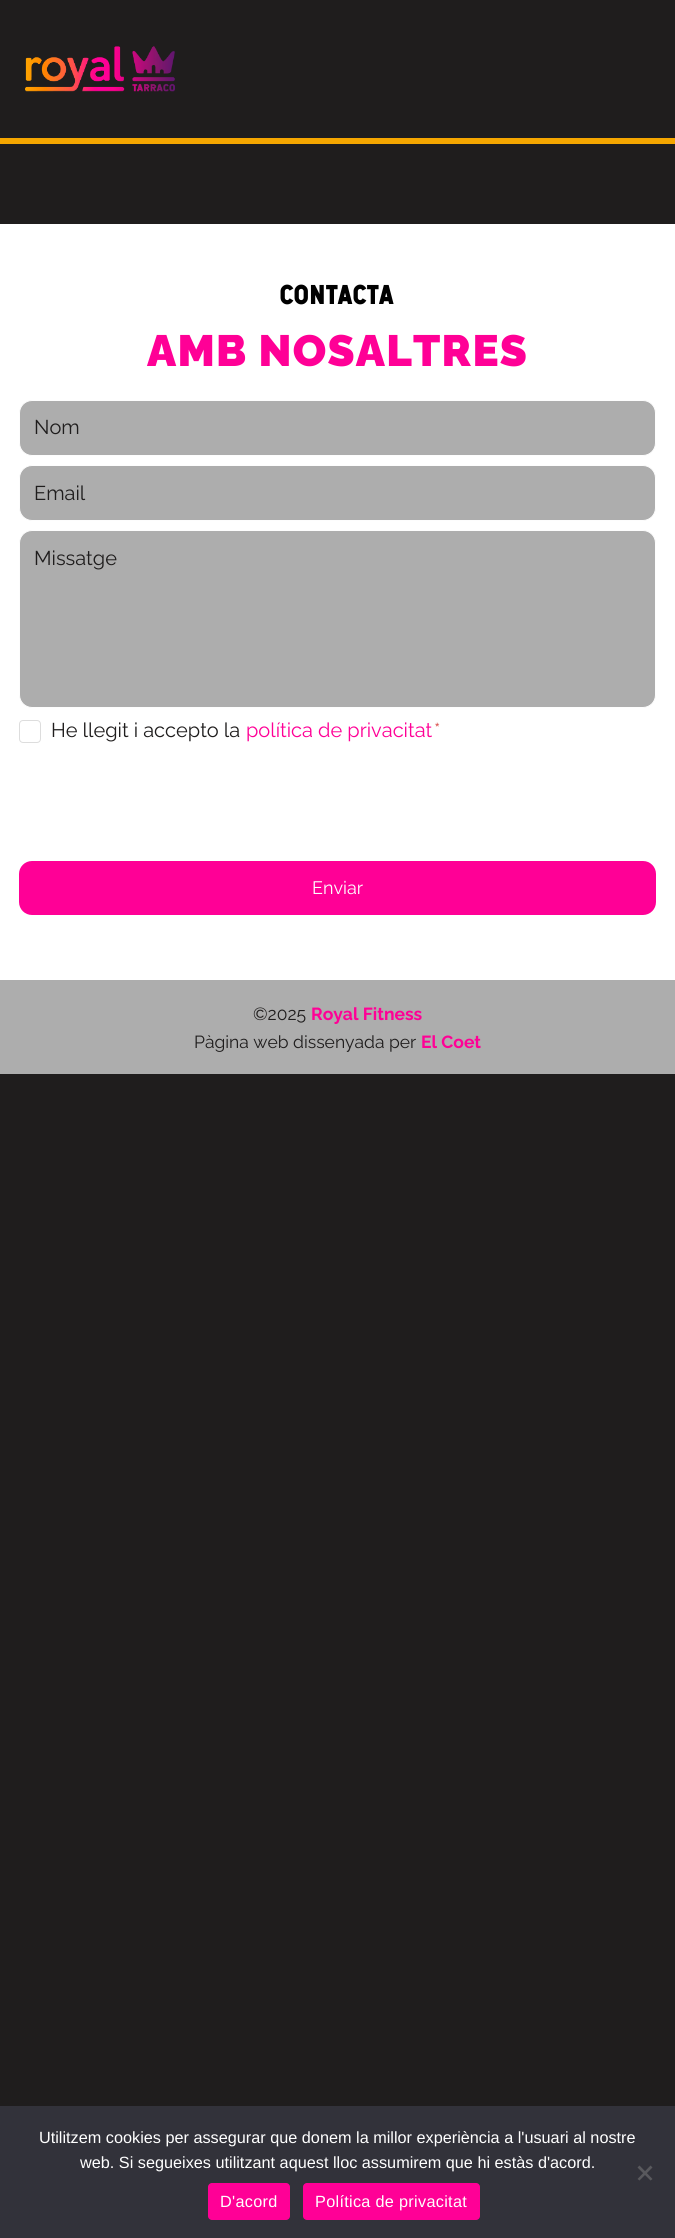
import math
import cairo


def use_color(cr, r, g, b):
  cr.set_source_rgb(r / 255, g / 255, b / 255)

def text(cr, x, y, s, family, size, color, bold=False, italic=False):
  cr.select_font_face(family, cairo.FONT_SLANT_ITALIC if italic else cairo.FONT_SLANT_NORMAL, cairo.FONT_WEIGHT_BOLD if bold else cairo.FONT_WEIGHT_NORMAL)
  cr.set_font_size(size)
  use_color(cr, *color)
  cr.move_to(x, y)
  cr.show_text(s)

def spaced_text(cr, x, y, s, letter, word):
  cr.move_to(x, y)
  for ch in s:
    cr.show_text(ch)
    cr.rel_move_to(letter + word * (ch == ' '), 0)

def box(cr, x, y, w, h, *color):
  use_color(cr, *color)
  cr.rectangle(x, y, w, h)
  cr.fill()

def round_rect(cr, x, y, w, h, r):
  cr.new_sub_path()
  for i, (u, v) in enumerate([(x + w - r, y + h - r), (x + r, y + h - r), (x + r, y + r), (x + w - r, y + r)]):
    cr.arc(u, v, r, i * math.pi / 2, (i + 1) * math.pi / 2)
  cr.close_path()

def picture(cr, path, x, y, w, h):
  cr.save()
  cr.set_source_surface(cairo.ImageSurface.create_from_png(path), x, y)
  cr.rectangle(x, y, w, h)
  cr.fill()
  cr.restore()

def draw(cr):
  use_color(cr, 31, 29, 29)
  cr.paint()
  box(cr, 0, 138, 675, 6, 245, 166, 0)
  picture(cr, "img_01.png", 25, 46, 150, 46)
  box(cr, 0, 224, 675, 756, 255, 255, 255)
  use_color(cr, 173, 173, 173)
  round_rect(cr, 19.5, 400.5, 636, 55, 12.5)
  cr.fill_preserve()
  use_color(cr, 253, 253, 253)
  cr.set_line_width(1)
  cr.stroke()
  use_color(cr, 173, 173, 173)
  round_rect(cr, 19.5, 465.5, 636, 55, 12.5)
  cr.fill_preserve()
  use_color(cr, 253, 253, 253)
  cr.stroke()
  use_color(cr, 173, 173, 173)
  round_rect(cr, 19.5, 530.5, 636, 177, 12.5)
  cr.fill_preserve()
  use_color(cr, 253, 253, 253)
  cr.stroke()
  round_rect(cr, 19.5, 720.5, 21, 22, 3.5)
  use_color(cr, 221, 221, 221)
  cr.stroke()
  use_color(cr, 255, 0, 150)
  round_rect(cr, 19, 861, 637, 54, 13)
  cr.fill()
  box(cr, 0, 980, 675, 94, 173, 173, 173)
  box(cr, 0, 2106, 675, 132, 50, 50, 58)
  use_color(cr, 89, 89, 93)
  cr.new_path()
  cr.move_to(650.5, 2165.5)
  cr.line_to(652.5, 2167.5)
  cr.line_to(639.5, 2180.5)
  cr.line_to(637.5, 2179)
  cr.close_path()
  cr.fill()
  cr.new_path()
  cr.move_to(637.5, 2167.5)
  cr.line_to(639.5, 2165.5)
  cr.line_to(652.5, 2179)
  cr.line_to(650.5, 2180.5)
  cr.close_path()
  cr.fill()
  use_color(cr, 255, 0, 150)
  round_rect(cr, 208, 2183, 82, 37, 4)
  cr.fill()
  round_rect(cr, 303, 2183, 177, 37, 4)
  cr.fill()
  cr.select_font_face("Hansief", cairo.FONT_SLANT_NORMAL, cairo.FONT_WEIGHT_BOLD)
  cr.set_font_size(25)
  use_color(cr, 0, 0, 0)
  spaced_text(cr, 280, 304, "CONTACTA", 1.25, 0)
  cr.select_font_face("Raleway Black")
  cr.set_font_size(43.75)
  use_color(cr, 255, 0, 150)
  spaced_text(cr, 147, 366, "AMB NOSALTRES", 1.25, 0)
  text(cr, 34, 434, "Nom", "Raleway", 20, (31, 29, 29))
  text(cr, 34, 500, "Email", "Raleway", 20, (31, 29, 29))
  text(cr, 34, 565, "Missatge", "Raleway", 20, (31, 29, 29))
  text(cr, 51, 737, "He llegit i accepto la", "Raleway", 20, (31, 29, 29))
  text(cr, 246, 737, "política de privacitat", "Raleway", 20, (255, 0, 150))
  text(cr, 434, 737, "*", "Raleway", 20, (217, 83, 79))
  text(cr, 312, 894, "Enviar", "Raleway", 18, (255, 255, 255))
  text(cr, 253, 1020, "©2025", "Raleway", 17.5, (31, 29, 29))
  text(cr, 311, 1020, "Royal Fitness", "Raleway", 17.5, (255, 0, 150), bold=True)
  text(cr, 194, 1048, "Pàgina web dissenyada per", "Raleway", 17.5, (31, 29, 29))
  text(cr, 421, 1048, "El Coet", "Raleway", 17.5, (255, 0, 150), bold=True)
  text(cr, 39, 2143, "Utilitzem cookies per assegurar que donem la millor experiència a l'usuari al nostre", "Liberation Sans", 16.25, (255, 255, 255))
  text(cr, 80, 2168, "web. Si segueixes utilitzant aquest lloc assumirem que hi estàs d'acord.", "Liberation Sans", 16.25, (255, 255, 255))
  spaced_text(cr, 220, 2207, "D'acord", 0.3, 0)
  spaced_text(cr, 315, 2207, "Política de privacitat", 0.3, 0)


surface = cairo.ImageSurface(cairo.FORMAT_RGB24, 675, 2238)
cr = cairo.Context(surface)
options = cairo.FontOptions()
options.set_hint_metrics(cairo.HINT_METRICS_OFF)
options.set_hint_style(cairo.HINT_STYLE_NONE)
cr.set_font_options(options)
cr.set_miter_limit(4)
draw(cr)
surface.write_to_png("out.png")
